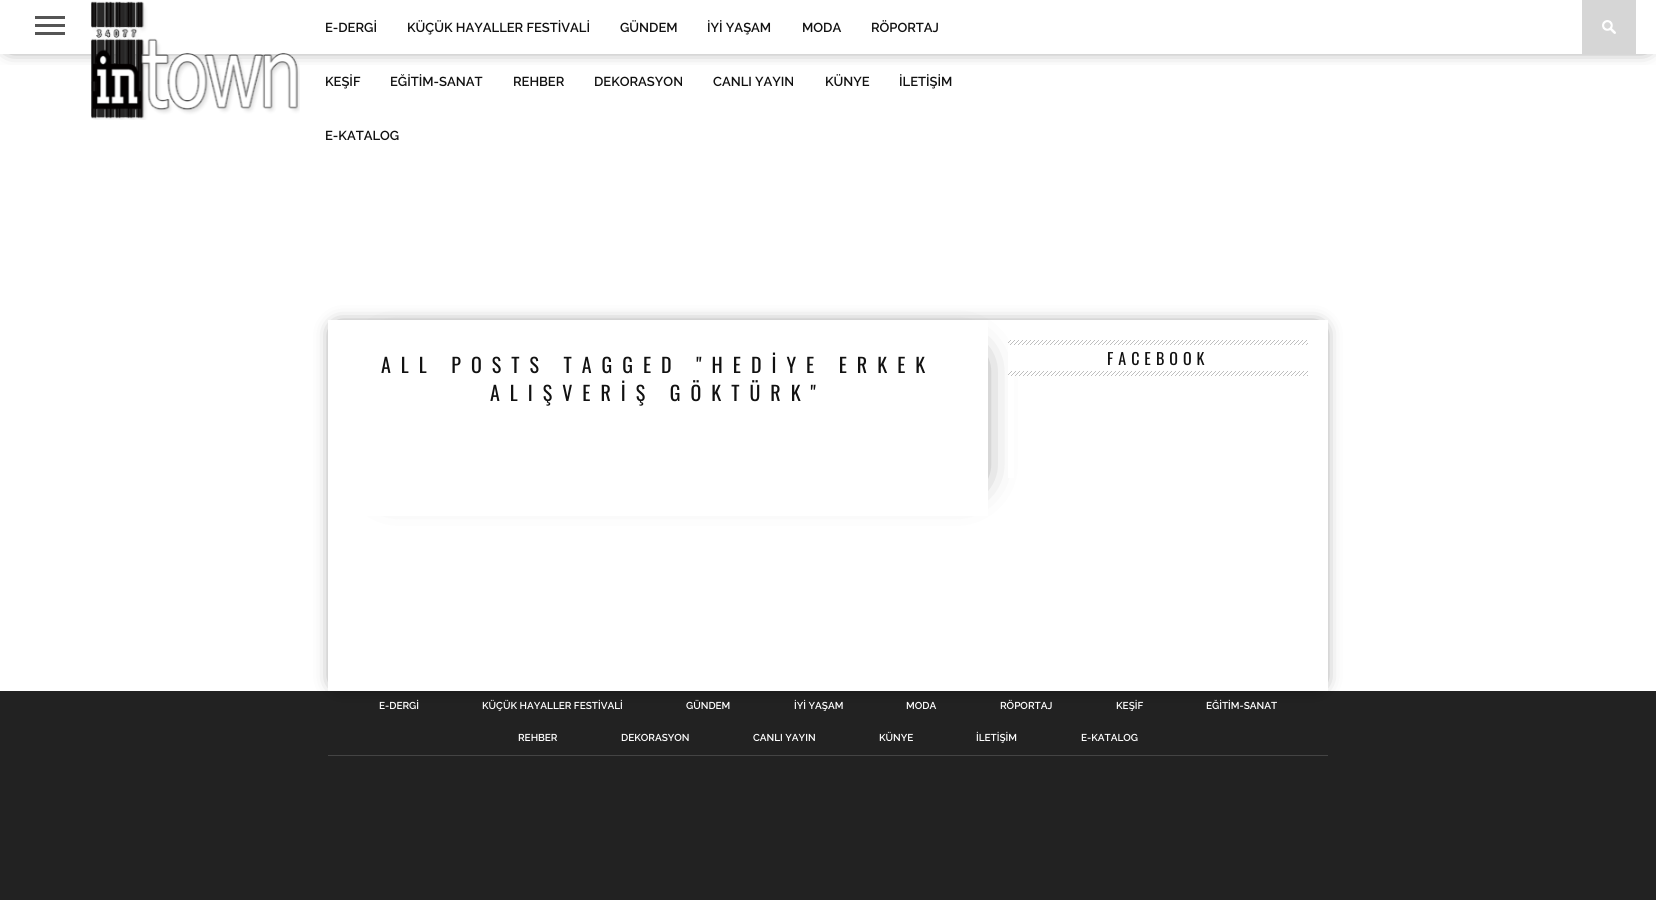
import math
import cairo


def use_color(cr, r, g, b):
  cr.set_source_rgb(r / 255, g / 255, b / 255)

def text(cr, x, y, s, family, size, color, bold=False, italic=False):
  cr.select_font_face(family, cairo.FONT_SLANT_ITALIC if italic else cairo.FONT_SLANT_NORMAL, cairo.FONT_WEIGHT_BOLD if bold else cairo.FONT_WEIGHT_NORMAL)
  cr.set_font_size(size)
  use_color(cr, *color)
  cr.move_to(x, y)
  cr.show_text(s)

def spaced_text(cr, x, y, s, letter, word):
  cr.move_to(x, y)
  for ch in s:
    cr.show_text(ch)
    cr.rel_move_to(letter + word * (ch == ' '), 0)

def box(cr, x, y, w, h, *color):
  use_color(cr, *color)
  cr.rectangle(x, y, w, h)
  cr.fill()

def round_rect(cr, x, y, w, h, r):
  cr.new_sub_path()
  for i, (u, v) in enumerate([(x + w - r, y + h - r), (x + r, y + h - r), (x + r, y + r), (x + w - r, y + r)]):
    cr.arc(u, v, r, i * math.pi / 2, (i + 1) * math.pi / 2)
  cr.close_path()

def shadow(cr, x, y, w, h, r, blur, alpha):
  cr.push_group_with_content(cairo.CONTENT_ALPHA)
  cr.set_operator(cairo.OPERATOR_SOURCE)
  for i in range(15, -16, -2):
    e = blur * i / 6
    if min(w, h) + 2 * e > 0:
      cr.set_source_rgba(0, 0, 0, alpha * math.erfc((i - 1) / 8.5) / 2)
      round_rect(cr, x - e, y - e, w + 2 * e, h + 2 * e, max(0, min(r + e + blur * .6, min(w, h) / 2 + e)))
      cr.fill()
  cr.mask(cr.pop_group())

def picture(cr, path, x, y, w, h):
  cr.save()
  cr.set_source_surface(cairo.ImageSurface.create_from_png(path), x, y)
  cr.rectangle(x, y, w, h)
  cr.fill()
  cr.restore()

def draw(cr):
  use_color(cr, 255, 255, 255)
  cr.paint()
  cr.save()
  cr.rectangle(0, 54, 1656, 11)
  cr.clip()
  use_color(cr, 0, 0, 0)
  shadow(cr, 10, 10, 1636, 34, 0, 10, 1)
  cr.restore()
  box(cr, 35, 16, 30, 3, 85, 85, 85)
  box(cr, 35, 24, 30, 3, 85, 85, 85)
  box(cr, 35, 32, 30, 3, 85, 85, 85)
  picture(cr, "img_01.png", 91, 1, 209, 119)
  box(cr, 1582, 0, 54, 54, 214, 214, 214)
  picture(cr, "img_02.png", 1602, 20, 14, 14)
  box(cr, 0, 691, 1656, 209, 34, 34, 34)
  cr.save()
  cr.set_fill_rule(cairo.FILL_RULE_EVEN_ODD)
  cr.new_path()
  cr.move_to(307, 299)
  cr.line_to(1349, 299)
  cr.line_to(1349, 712)
  cr.line_to(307, 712)
  cr.close_path()
  cr.move_to(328, 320)
  cr.line_to(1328, 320)
  cr.line_to(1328, 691)
  cr.line_to(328, 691)
  cr.close_path()
  cr.clip()
  use_color(cr, 0, 0, 0)
  shadow(cr, 338, 330, 980, 351, 0, 10, 1)
  cr.restore()
  cr.save()
  cr.set_fill_rule(cairo.FILL_RULE_EVEN_ODD)
  cr.new_path()
  cr.move_to(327, 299)
  cr.line_to(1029, 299)
  cr.line_to(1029, 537)
  cr.line_to(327, 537)
  cr.close_path()
  cr.move_to(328, 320)
  cr.line_to(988, 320)
  cr.line_to(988, 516)
  cr.line_to(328, 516)
  cr.close_path()
  cr.clip()
  use_color(cr, 0, 0, 0)
  shadow(cr, 388, 360, 580, 116, 0, 20, 1)
  cr.restore()
  box(cr, 1008, 358, 6, 120, 255, 255, 255)
  picture(cr, "img_03.png", 1008, 340, 300, 36)
  box(cr, 1008, 345, 300, 26, 255, 255, 255)
  box(cr, 328, 755, 1000, 1, 68, 68, 68)
  text(cr, 325, 32, "E-DERGİ", "Raleway SemiBold", 13, (17, 17, 17))
  text(cr, 407, 32, "KÜÇÜK HAYALLER FESTİVALİ", "Raleway SemiBold", 13, (17, 17, 17))
  text(cr, 620, 32, "GÜNDEM", "Raleway SemiBold", 13, (17, 17, 17))
  text(cr, 707, 32, "İYİ YAŞAM", "Raleway SemiBold", 13, (17, 17, 17))
  text(cr, 802, 32, "MODA", "Raleway SemiBold", 13, (17, 17, 17))
  text(cr, 871, 32, "RÖPORTAJ", "Raleway SemiBold", 13, (17, 17, 17))
  text(cr, 325, 86, "KEŞİF", "Raleway SemiBold", 13, (17, 17, 17))
  text(cr, 390, 86, "EĞİTİM-SANAT", "Raleway SemiBold", 13, (17, 17, 17))
  text(cr, 513, 86, "REHBER", "Raleway SemiBold", 13, (17, 17, 17))
  text(cr, 594, 86, "DEKORASYON", "Raleway SemiBold", 13, (17, 17, 17))
  text(cr, 713, 86, "CANLI YAYIN", "Raleway SemiBold", 13, (17, 17, 17))
  text(cr, 825, 86, "KÜNYE", "Raleway SemiBold", 13, (17, 17, 17))
  text(cr, 899, 86, "İLETİŞİM", "Raleway SemiBold", 13, (17, 17, 17))
  text(cr, 325, 140, "E-KATALOG", "Raleway SemiBold", 13, (17, 17, 17))
  cr.select_font_face("Oswald")
  cr.set_font_size(20)
  spaced_text(cr, 381, 373, "ALL POSTS TAGGED \"HEDİYE ERKEK", 10, 0)
  spaced_text(cr, 490, 401, "ALIŞVERİŞ GÖKTÜRK\"", 10, 0)
  cr.set_font_size(16)
  spaced_text(cr, 1107, 365, "FACEBOOK", 5, 0)
  text(cr, 379, 709, "E-DERGİ", "Raleway SemiBold", 10, (255, 255, 255))
  text(cr, 482, 709, "KÜÇÜK HAYALLER FESTİVALİ", "Raleway SemiBold", 10, (255, 255, 255))
  text(cr, 686, 709, "GÜNDEM", "Raleway SemiBold", 10, (255, 255, 255))
  text(cr, 794, 709, "İYİ YAŞAM", "Raleway SemiBold", 10, (255, 255, 255))
  text(cr, 906, 709, "MODA", "Raleway SemiBold", 10, (255, 255, 255))
  text(cr, 1000, 709, "RÖPORTAJ", "Raleway SemiBold", 10, (255, 255, 255))
  text(cr, 1116, 709, "KEŞİF", "Raleway SemiBold", 10, (255, 255, 255))
  text(cr, 1206, 709, "EĞİTİM-SANAT", "Raleway SemiBold", 10, (255, 255, 255))
  text(cr, 518, 741, "REHBER", "Raleway SemiBold", 10, (255, 255, 255))
  text(cr, 621, 741, "DEKORASYON", "Raleway SemiBold", 10, (255, 255, 255))
  text(cr, 753, 741, "CANLI YAYIN", "Raleway SemiBold", 10, (255, 255, 255))
  text(cr, 879, 741, "KÜNYE", "Raleway SemiBold", 10, (255, 255, 255))
  text(cr, 976, 741, "İLETİŞİM", "Raleway SemiBold", 10, (255, 255, 255))
  text(cr, 1081, 741, "E-KATALOG", "Raleway SemiBold", 10, (255, 255, 255))


surface = cairo.ImageSurface(cairo.FORMAT_RGB24, 1656, 900)
cr = cairo.Context(surface)
options = cairo.FontOptions()
options.set_hint_metrics(cairo.HINT_METRICS_OFF)
options.set_hint_style(cairo.HINT_STYLE_NONE)
cr.set_font_options(options)
cr.set_miter_limit(4)
draw(cr)
surface.write_to_png("out.png")
